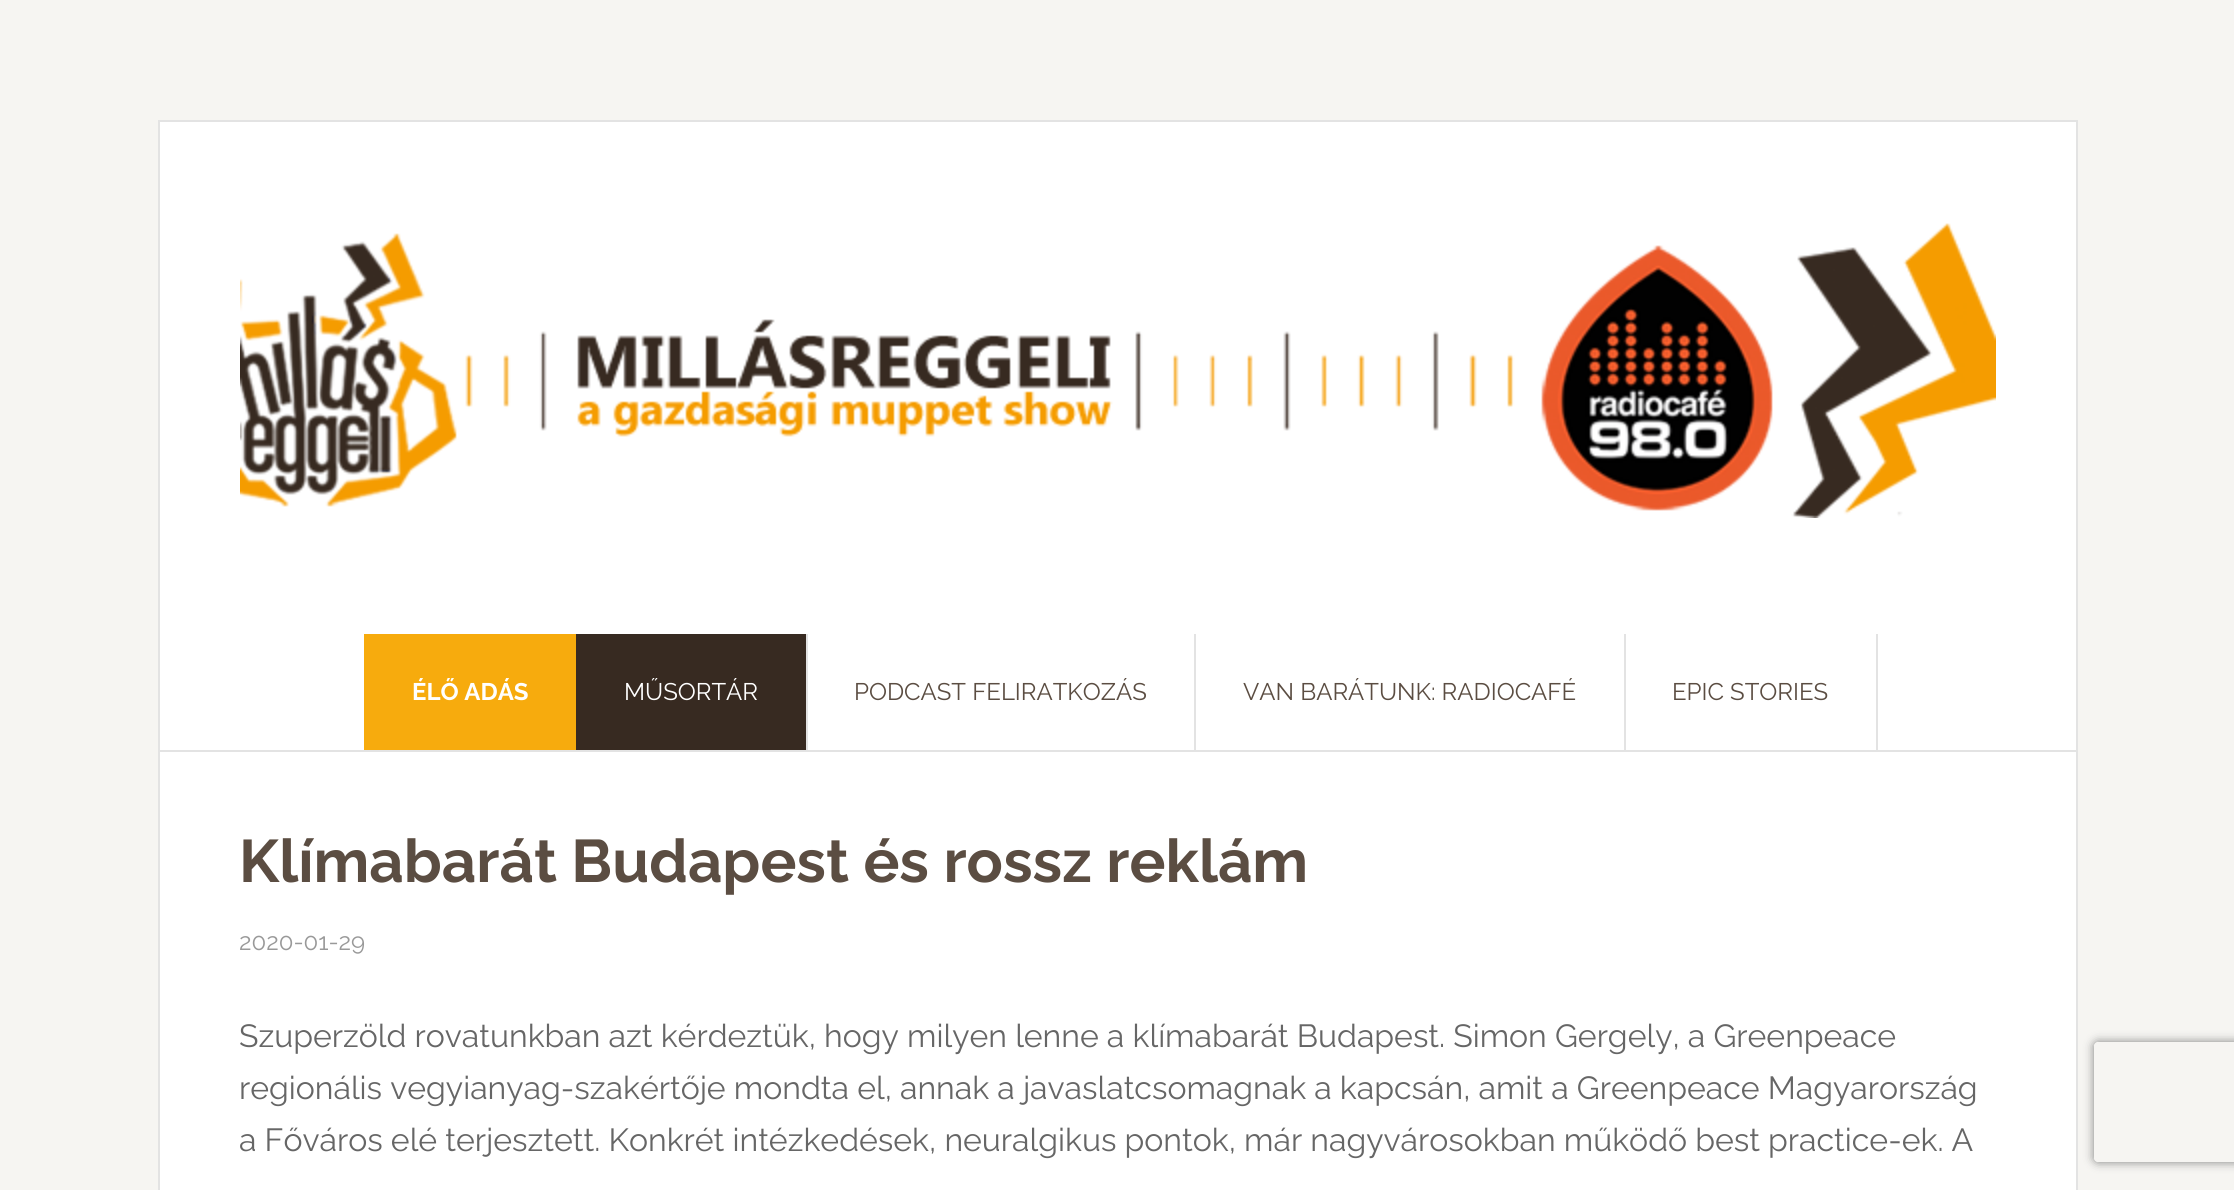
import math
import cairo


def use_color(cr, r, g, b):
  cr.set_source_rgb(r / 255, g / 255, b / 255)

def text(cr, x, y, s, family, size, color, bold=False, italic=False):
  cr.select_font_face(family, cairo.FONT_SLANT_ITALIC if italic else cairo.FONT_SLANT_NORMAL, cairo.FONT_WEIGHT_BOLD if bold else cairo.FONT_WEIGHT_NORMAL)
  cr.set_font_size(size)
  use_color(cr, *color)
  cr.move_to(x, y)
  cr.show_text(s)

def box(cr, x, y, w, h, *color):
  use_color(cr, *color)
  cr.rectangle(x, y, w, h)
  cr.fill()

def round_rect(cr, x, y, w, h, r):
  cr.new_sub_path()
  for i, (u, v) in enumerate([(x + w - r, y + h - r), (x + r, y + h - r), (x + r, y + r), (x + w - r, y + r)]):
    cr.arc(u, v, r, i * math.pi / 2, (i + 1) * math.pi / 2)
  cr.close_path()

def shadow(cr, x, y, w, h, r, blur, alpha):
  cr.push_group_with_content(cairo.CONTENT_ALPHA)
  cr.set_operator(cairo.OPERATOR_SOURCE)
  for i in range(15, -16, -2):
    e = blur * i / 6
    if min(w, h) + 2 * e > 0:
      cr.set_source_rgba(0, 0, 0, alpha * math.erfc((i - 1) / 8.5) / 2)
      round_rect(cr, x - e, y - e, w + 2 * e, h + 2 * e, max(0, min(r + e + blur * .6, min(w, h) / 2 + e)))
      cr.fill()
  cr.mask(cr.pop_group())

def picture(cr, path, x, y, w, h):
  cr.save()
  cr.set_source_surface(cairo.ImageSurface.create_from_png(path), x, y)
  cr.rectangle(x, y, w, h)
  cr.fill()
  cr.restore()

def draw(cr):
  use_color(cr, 246, 245, 242)
  cr.paint()
  use_color(cr, 255, 255, 255)
  cr.rectangle(159, 121, 1918, 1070)
  cr.fill_preserve()
  use_color(cr, 227, 227, 227)
  cr.stroke()
  picture(cr, "img_01.png", 240, 223, 1756, 295)
  box(cr, 160, 750, 1916, 2, 227, 227, 227)
  box(cr, 364, 634, 212, 116, 247, 171, 13)
  box(cr, 576, 634, 230, 116, 55, 42, 33)
  box(cr, 806, 634, 2, 116, 227, 227, 227)
  box(cr, 1194, 634, 2, 116, 227, 227, 227)
  box(cr, 1624, 634, 2, 116, 227, 227, 227)
  box(cr, 1876, 634, 2, 116, 227, 227, 227)
  cr.save()
  cr.set_fill_rule(cairo.FILL_RULE_EVEN_ODD)
  cr.new_path()
  cr.move_to(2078, 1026)
  cr.line_to(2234, 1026)
  cr.line_to(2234, 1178)
  cr.line_to(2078, 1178)
  cr.close_path()
  cr.move_to(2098, 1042)
  cr.line_to(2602, 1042)
  cr.curve_to(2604, 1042, 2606, 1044, 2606, 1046)
  cr.line_to(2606, 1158)
  cr.curve_to(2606, 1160, 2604, 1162, 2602, 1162)
  cr.line_to(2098, 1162)
  cr.curve_to(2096, 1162, 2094, 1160, 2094, 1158)
  cr.line_to(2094, 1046)
  cr.curve_to(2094, 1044, 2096, 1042, 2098, 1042)
  cr.close_path()
  cr.clip()
  use_color(cr, 128, 128, 128)
  shadow(cr, 2094, 1042, 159, 120, 4, 5, 1)
  cr.restore()
  text(cr, 412, 700, "ÉLŐ ADÁS", "Raleway", 24, (255, 255, 255), bold=True)
  text(cr, 624, 700, "MŰSORTÁR", "Raleway", 24, (255, 255, 255))
  text(cr, 854, 700, "PODCAST FELIRATKOZÁS", "Raleway", 24, (91, 77, 66))
  text(cr, 1243, 700, "VAN BARÁTUNK: RADIOCAFÉ", "Raleway", 24, (91, 77, 66))
  text(cr, 1672, 700, "EPIC STORIES", "Raleway", 24, (91, 77, 66))
  text(cr, 239, 882, "Klímabarát Budapest és rossz reklám", "Raleway", 60, (91, 77, 66), bold=True)
  text(cr, 239, 950, "2020-01-29", "Raleway", 24, (153, 153, 153))
  text(cr, 239, 1047, "Szuperzöld rovatunkban azt kérdeztük, hogy milyen lenne a klímabarát Budapest. Simon Gergely, a Greenpeace", "Raleway", 32, (102, 102, 102))
  text(cr, 239, 1099, "regionális vegyianyag-szakértője mondta el, annak a javaslatcsomagnak a kapcsán, amit a Greenpeace Magyarország", "Raleway", 32, (102, 102, 102))
  text(cr, 239, 1151, "a Főváros elé terjesztett. Konkrét intézkedések, neuralgikus pontok, már nagyvárosokban működő best practice-ek. A", "Raleway", 32, (102, 102, 102))


surface = cairo.ImageSurface(cairo.FORMAT_RGB24, 2234, 1190)
cr = cairo.Context(surface)
options = cairo.FontOptions()
options.set_hint_metrics(cairo.HINT_METRICS_OFF)
options.set_hint_style(cairo.HINT_STYLE_NONE)
cr.set_font_options(options)
cr.set_miter_limit(4)
draw(cr)
surface.write_to_png("out.png")
